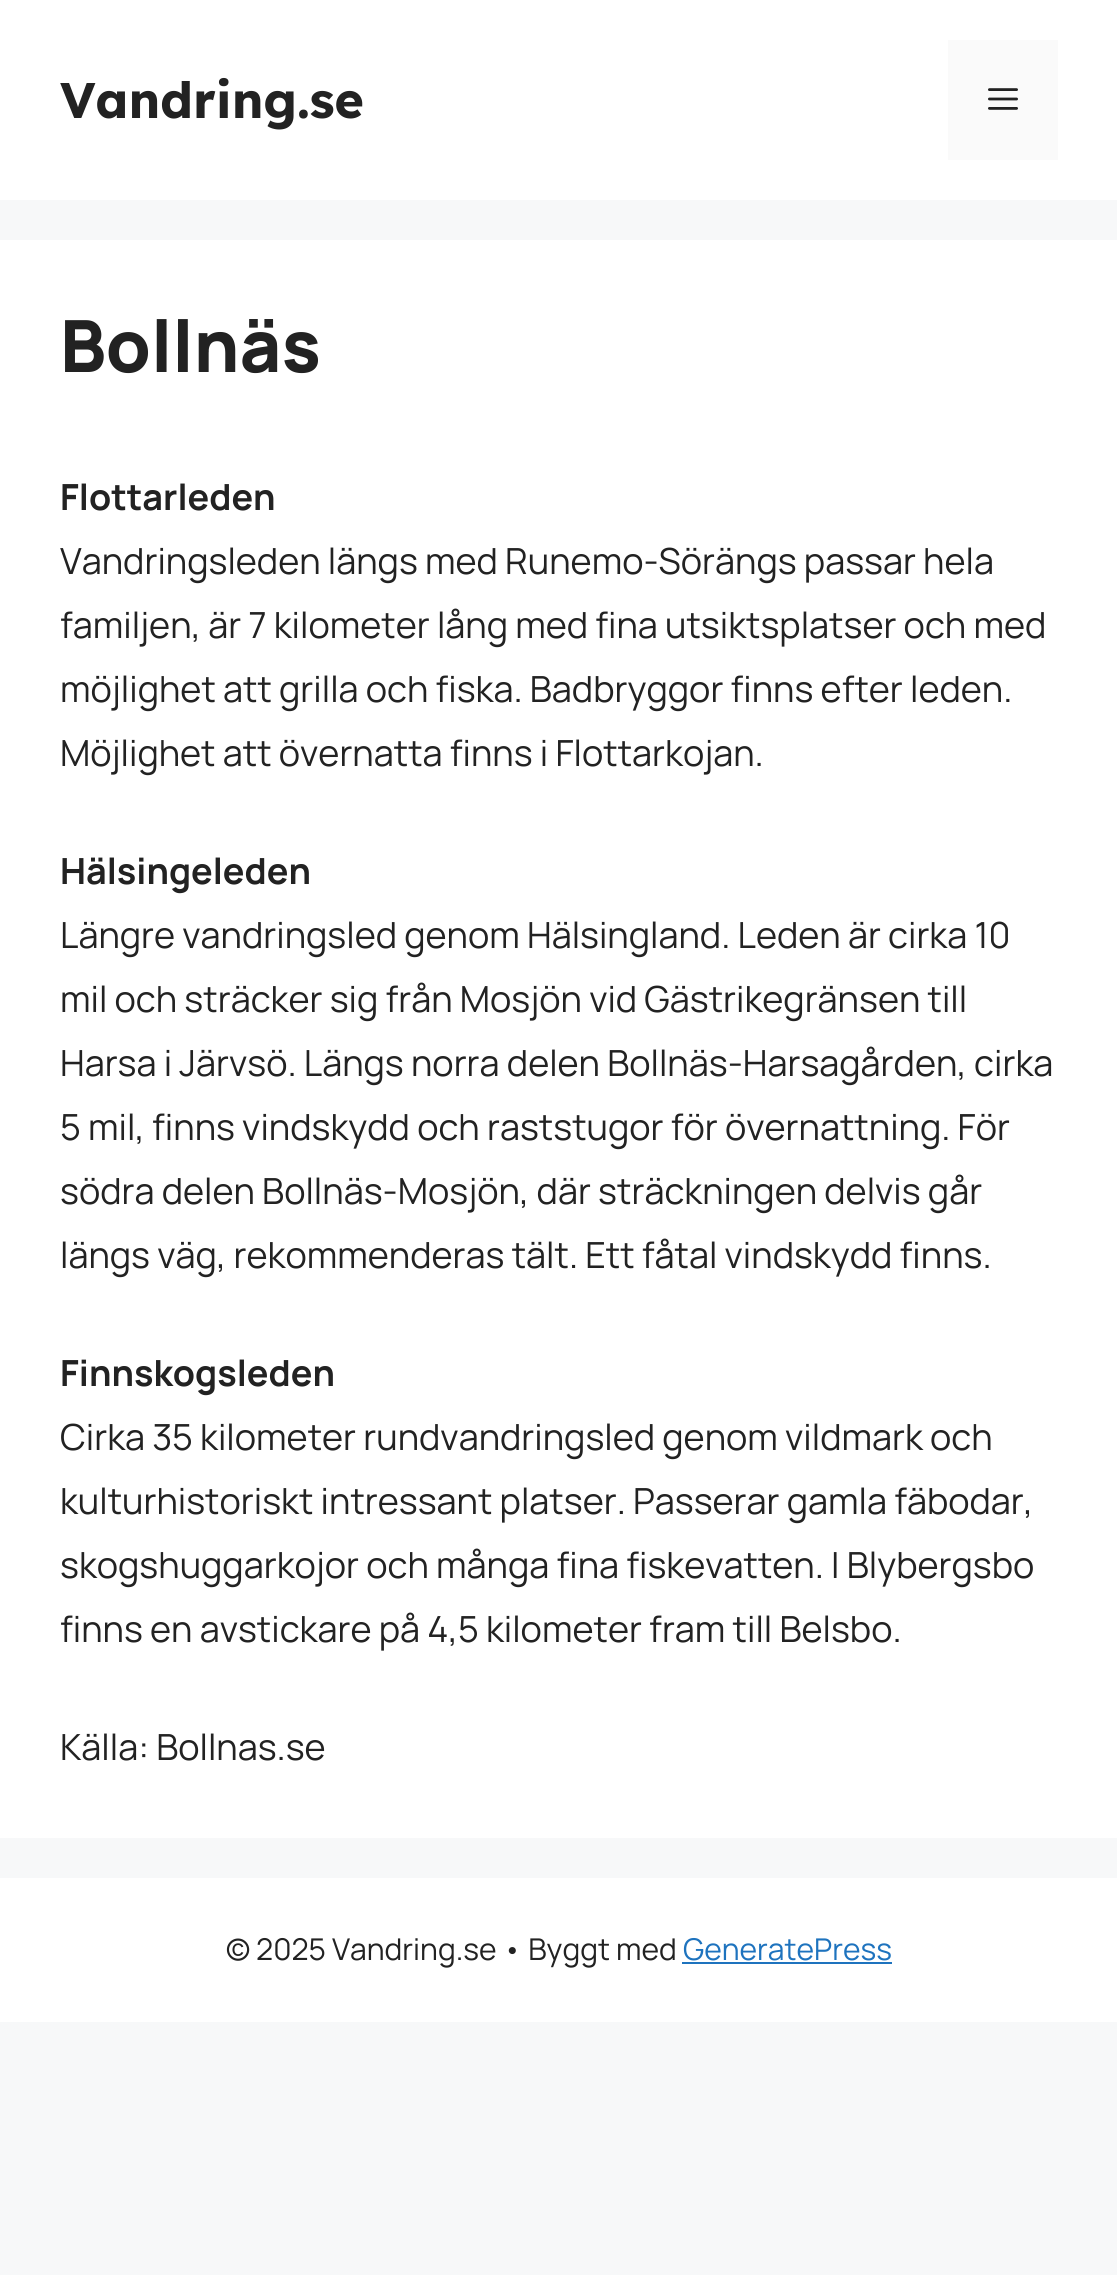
import math
import cairo


def use_color(cr, r, g, b):
  cr.set_source_rgb(r / 255, g / 255, b / 255)

def text(cr, x, y, s, family, size, color, bold=False, italic=False):
  cr.select_font_face(family, cairo.FONT_SLANT_ITALIC if italic else cairo.FONT_SLANT_NORMAL, cairo.FONT_WEIGHT_BOLD if bold else cairo.FONT_WEIGHT_NORMAL)
  cr.set_font_size(size)
  use_color(cr, *color)
  cr.move_to(x, y)
  cr.show_text(s)

def box(cr, x, y, w, h, *color):
  use_color(cr, *color)
  cr.rectangle(x, y, w, h)
  cr.fill()

def picture(cr, path, x, y, w, h):
  cr.save()
  cr.set_source_surface(cairo.ImageSurface.create_from_png(path), x, y)
  cr.rectangle(x, y, w, h)
  cr.fill()
  cr.restore()

def draw(cr):
  use_color(cr, 247, 248, 249)
  cr.paint()
  box(cr, 0, 0, 1117, 200, 255, 255, 255)
  box(cr, 948, 40, 110, 120, 250, 250, 250)
  picture(cr, "img_01.png", 988, 88, 30, 22)
  box(cr, 0, 240, 1117, 1598, 255, 255, 255)
  box(cr, 0, 1878, 1117, 144, 255, 255, 255)
  box(cr, 682, 1962, 210, 2, 30, 115, 190)
  text(cr, 60, 118, "Vandring.se", "Lexend", 50, (34, 34, 34), bold=True)
  text(cr, 60, 372, "Bollnäs", "Manrope ExtraBold", 72, (34, 34, 34))
  text(cr, 60, 510, "Flottarleden", "Manrope", 36, (34, 34, 34), bold=True)
  text(cr, 60, 574, "Vandringsleden längs med Runemo-Sörängs passar hela", "Manrope", 36, (34, 34, 34))
  text(cr, 60, 638, "familjen, är 7 kilometer lång med fina utsiktsplatser och med", "Manrope", 36, (34, 34, 34))
  text(cr, 60, 702, "möjlighet att grilla och fiska. Badbryggor finns efter leden.", "Manrope", 36, (34, 34, 34))
  text(cr, 60, 766, "Möjlighet att övernatta finns i Flottarkojan.", "Manrope", 36, (34, 34, 34))
  text(cr, 60, 884, "Hälsingeleden", "Manrope", 36, (34, 34, 34), bold=True)
  text(cr, 60, 948, "Längre vandringsled genom Hälsingland. Leden är cirka 10", "Manrope", 36, (34, 34, 34))
  text(cr, 60, 1012, "mil och sträcker sig från Mosjön vid Gästrikegränsen till", "Manrope", 36, (34, 34, 34))
  text(cr, 60, 1076, "Harsa i Järvsö. Längs norra delen Bollnäs-Harsagården, cirka", "Manrope", 36, (34, 34, 34))
  text(cr, 60, 1140, "5 mil, finns vindskydd och raststugor för övernattning. För", "Manrope", 36, (34, 34, 34))
  text(cr, 60, 1204, "södra delen Bollnäs-Mosjön, där sträckningen delvis går", "Manrope", 36, (34, 34, 34))
  text(cr, 60, 1268, "längs väg, rekommenderas tält. Ett fåtal vindskydd finns.", "Manrope", 36, (34, 34, 34))
  text(cr, 60, 1386, "Finnskogsleden", "Manrope", 36, (34, 34, 34), bold=True)
  text(cr, 60, 1450, "Cirka 35 kilometer rundvandringsled genom vildmark och", "Manrope", 36, (34, 34, 34))
  text(cr, 60, 1514, "kulturhistoriskt intressant platser. Passerar gamla fäbodar,", "Manrope", 36, (34, 34, 34))
  text(cr, 60, 1578, "skogshuggarkojor och många fina fiskevatten. I Blybergsbo", "Manrope", 36, (34, 34, 34))
  text(cr, 60, 1642, "finns en avstickare på 4,5 kilometer fram till Belsbo.", "Manrope", 36, (34, 34, 34))
  text(cr, 60, 1760, "Källa: Bollnas.se", "Manrope", 36, (34, 34, 34))
  text(cr, 226, 1960, "© 2025 Vandring.se • Byggt med", "Manrope", 30, (34, 34, 34))
  text(cr, 683, 1960, "GeneratePress", "Manrope", 30, (30, 115, 190))


surface = cairo.ImageSurface(cairo.FORMAT_RGB24, 1117, 2275)
cr = cairo.Context(surface)
options = cairo.FontOptions()
options.set_hint_metrics(cairo.HINT_METRICS_OFF)
options.set_hint_style(cairo.HINT_STYLE_NONE)
cr.set_font_options(options)
cr.set_miter_limit(4)
draw(cr)
surface.write_to_png("out.png")
